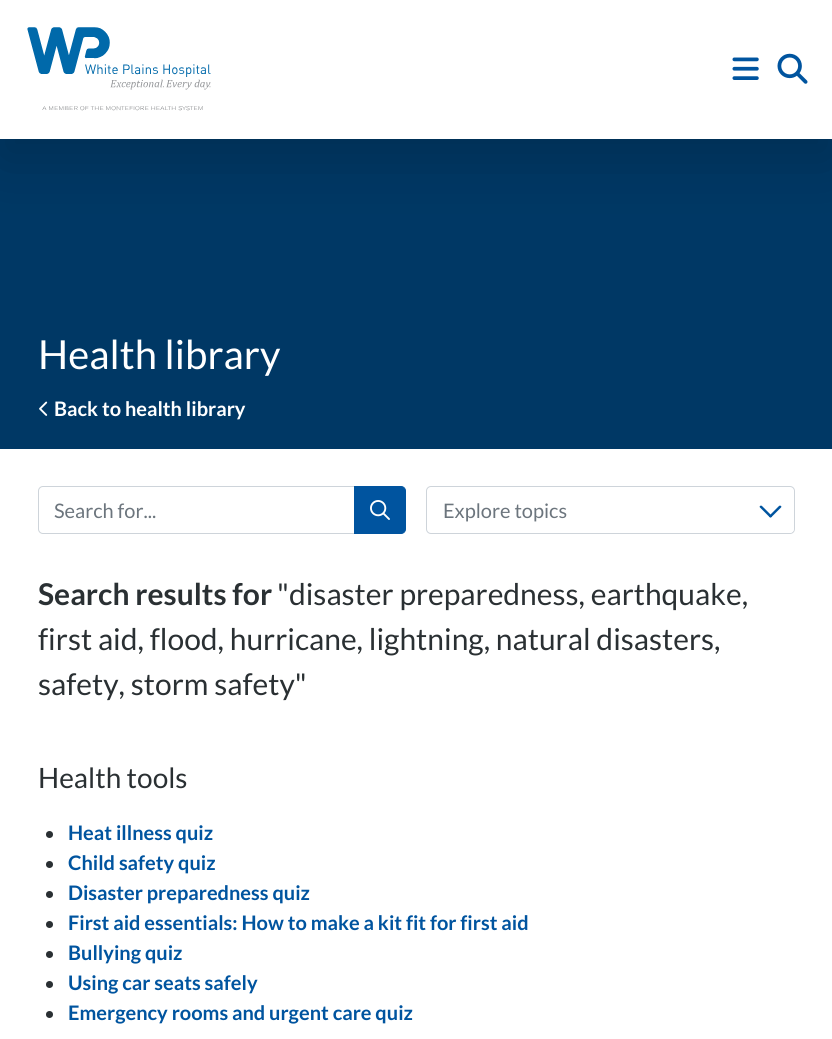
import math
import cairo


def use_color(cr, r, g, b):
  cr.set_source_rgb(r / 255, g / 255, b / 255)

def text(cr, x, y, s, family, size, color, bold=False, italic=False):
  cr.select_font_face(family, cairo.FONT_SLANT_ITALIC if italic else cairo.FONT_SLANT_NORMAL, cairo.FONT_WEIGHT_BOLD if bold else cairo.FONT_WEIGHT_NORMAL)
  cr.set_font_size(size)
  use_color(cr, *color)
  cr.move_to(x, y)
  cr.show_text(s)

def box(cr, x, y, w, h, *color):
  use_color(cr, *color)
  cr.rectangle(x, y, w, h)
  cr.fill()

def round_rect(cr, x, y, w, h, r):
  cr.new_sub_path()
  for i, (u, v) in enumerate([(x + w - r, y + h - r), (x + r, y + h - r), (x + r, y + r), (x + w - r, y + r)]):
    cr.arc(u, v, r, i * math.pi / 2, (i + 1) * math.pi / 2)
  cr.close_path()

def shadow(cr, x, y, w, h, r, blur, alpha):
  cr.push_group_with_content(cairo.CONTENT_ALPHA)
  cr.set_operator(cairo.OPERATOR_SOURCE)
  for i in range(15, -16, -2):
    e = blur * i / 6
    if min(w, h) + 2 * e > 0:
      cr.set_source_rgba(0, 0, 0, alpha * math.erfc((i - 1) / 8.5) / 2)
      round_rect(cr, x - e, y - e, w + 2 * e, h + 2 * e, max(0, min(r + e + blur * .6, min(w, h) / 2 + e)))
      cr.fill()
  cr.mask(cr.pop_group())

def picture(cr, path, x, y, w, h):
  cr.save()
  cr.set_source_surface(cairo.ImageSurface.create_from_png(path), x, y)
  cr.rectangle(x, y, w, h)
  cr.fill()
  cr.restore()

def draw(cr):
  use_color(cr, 255, 255, 255)
  cr.paint()
  box(cr, 0, 139, 832, 310, 0, 56, 101)
  cr.save()
  cr.set_fill_rule(cairo.FILL_RULE_EVEN_ODD)
  cr.new_path()
  cr.move_to(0, 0)
  cr.line_to(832, 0)
  cr.line_to(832, 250)
  cr.line_to(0, 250)
  cr.close_path()
  cr.move_to(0, 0)
  cr.line_to(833, 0)
  cr.line_to(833, 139)
  cr.line_to(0, 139)
  cr.close_path()
  cr.clip()
  use_color(cr, 0, 0, 0)
  shadow(cr, 0, 20, 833, 139, 0, 30, 0.18)
  cr.restore()
  picture(cr, "img_01.png", 27, 27, 184, 84)
  picture(cr, "img_02.png", 732, 57, 27, 23)
  picture(cr, "img_03.png", 777, 53, 31, 31)
  picture(cr, "img_04.png", 39, 401, 9, 15)
  cr.new_path()
  cr.move_to(43, 486.5)
  cr.line_to(354.5, 486.5)
  cr.line_to(354.5, 533.5)
  cr.line_to(43, 533.5)
  cr.curve_to(40.5, 533.5, 38.5, 531.5, 38.5, 529)
  cr.line_to(38.5, 491)
  cr.curve_to(38.5, 488.5, 40.5, 486.5, 43, 486.5)
  cr.close_path()
  use_color(cr, 206, 212, 218)
  cr.set_line_width(1)
  cr.stroke()
  use_color(cr, 0, 84, 159)
  cr.new_path()
  cr.move_to(354.5, 486.5)
  cr.line_to(401, 486.5)
  cr.curve_to(403.5, 486.5, 405.5, 488.5, 405.5, 491)
  cr.line_to(405.5, 529)
  cr.curve_to(405.5, 531.5, 403.5, 533.5, 401, 533.5)
  cr.line_to(354.5, 533.5)
  cr.close_path()
  cr.fill_preserve()
  cr.stroke()
  picture(cr, "img_05.png", 370, 500, 20, 20)
  round_rect(cr, 426.5, 486.5, 368, 47, 4.5)
  use_color(cr, 206, 212, 218)
  cr.stroke()
  gradient = cairo.LinearGradient(794, 510, 734, 510)
  gradient.add_color_stop_rgba(0.5, 1, 1, 1, 1)
  gradient.add_color_stop_rgba(1, 1, 1, 1, 0)
  cr.set_source(gradient)
  cr.new_path()
  cr.move_to(734, 488)
  cr.line_to(789, 488)
  cr.curve_to(792, 488, 794, 490, 794, 493)
  cr.line_to(794, 528)
  cr.curve_to(794, 531, 792, 533, 789, 533)
  cr.line_to(734, 533)
  cr.close_path()
  cr.fill()
  use_color(cr, 0, 84, 159)
  cr.new_path()
  cr.move_to(760, 506)
  cr.curve_to(760.5, 505.5, 761.5, 505.5, 762, 506)
  cr.line_to(771.5, 515.5)
  cr.curve_to(772, 516, 772, 516.5, 771.5, 517)
  cr.curve_to(771, 517.5, 770, 517.5, 769.5, 517)
  cr.line_to(760, 507.5)
  cr.curve_to(759.5, 507, 759.5, 506.5, 760, 506)
  cr.close_path()
  cr.fill()
  cr.new_path()
  cr.move_to(781, 506)
  cr.curve_to(781.5, 506.5, 781.5, 507, 781, 507.5)
  cr.line_to(771.5, 517)
  cr.curve_to(771, 517.5, 770, 517.5, 769.5, 517)
  cr.curve_to(769, 516.5, 769, 516, 769.5, 515.5)
  cr.line_to(779, 506)
  cr.curve_to(779.5, 505.5, 780.5, 505.5, 781, 506)
  cr.close_path()
  cr.fill()
  use_color(cr, 42, 48, 51)
  cr.arc(49.5, 834.5, 3.5, 0, 2 * math.pi)
  cr.fill()
  cr.arc(49.5, 864.5, 3.5, 0, 2 * math.pi)
  cr.fill()
  cr.arc(49.5, 894.5, 3.5, 0, 2 * math.pi)
  cr.fill()
  cr.arc(49.5, 924.5, 3.5, 0, 2 * math.pi)
  cr.fill()
  cr.arc(49.5, 954.5, 3.5, 0, 2 * math.pi)
  cr.fill()
  cr.arc(49.5, 984.5, 3.5, 0, 2 * math.pi)
  cr.fill()
  cr.arc(49.5, 1014.5, 3.5, 0, 2 * math.pi)
  cr.fill()
  text(cr, 38, 369, "Health library", "Lato", 40, (255, 255, 255))
  text(cr, 54, 416, "Back to health library", "Lato", 20, (255, 255, 255), bold=True)
  text(cr, 54, 518, "Search for...", "Lato", 20, (108, 117, 125))
  text(cr, 443, 518, "Explore topics", "Lato", 20, (108, 117, 125))
  text(cr, 38, 605, "Search results for", "Lato", 30, (42, 48, 51), bold=True)
  text(cr, 277, 605, "\"disaster preparedness, earthquake,", "Lato", 30, (42, 48, 51))
  text(cr, 38, 650, "first aid, flood, hurricane, lightning, natural disasters,", "Lato", 30, (42, 48, 51))
  text(cr, 38, 695, "safety, storm safety\"", "Lato", 30, (42, 48, 51))
  text(cr, 38, 788, "Health tools", "Lato", 28, (42, 48, 51))
  text(cr, 68, 840, "Heat illness quiz", "Lato", 20, (0, 84, 159), bold=True)
  text(cr, 68, 870, "Child safety quiz", "Lato", 20, (0, 84, 159), bold=True)
  text(cr, 68, 900, "Disaster preparedness quiz", "Lato", 20, (0, 84, 159), bold=True)
  text(cr, 68, 930, "First aid essentials: How to make a kit fit for first aid", "Lato", 20, (0, 84, 159), bold=True)
  text(cr, 68, 960, "Bullying quiz", "Lato", 20, (0, 84, 159), bold=True)
  text(cr, 68, 990, "Using car seats safely", "Lato", 20, (0, 84, 159), bold=True)
  text(cr, 68, 1020, "Emergency rooms and urgent care quiz", "Lato", 20, (0, 84, 159), bold=True)


surface = cairo.ImageSurface(cairo.FORMAT_RGB24, 832, 1039)
cr = cairo.Context(surface)
options = cairo.FontOptions()
options.set_hint_metrics(cairo.HINT_METRICS_OFF)
options.set_hint_style(cairo.HINT_STYLE_NONE)
cr.set_font_options(options)
cr.set_miter_limit(4)
draw(cr)
surface.write_to_png("out.png")
